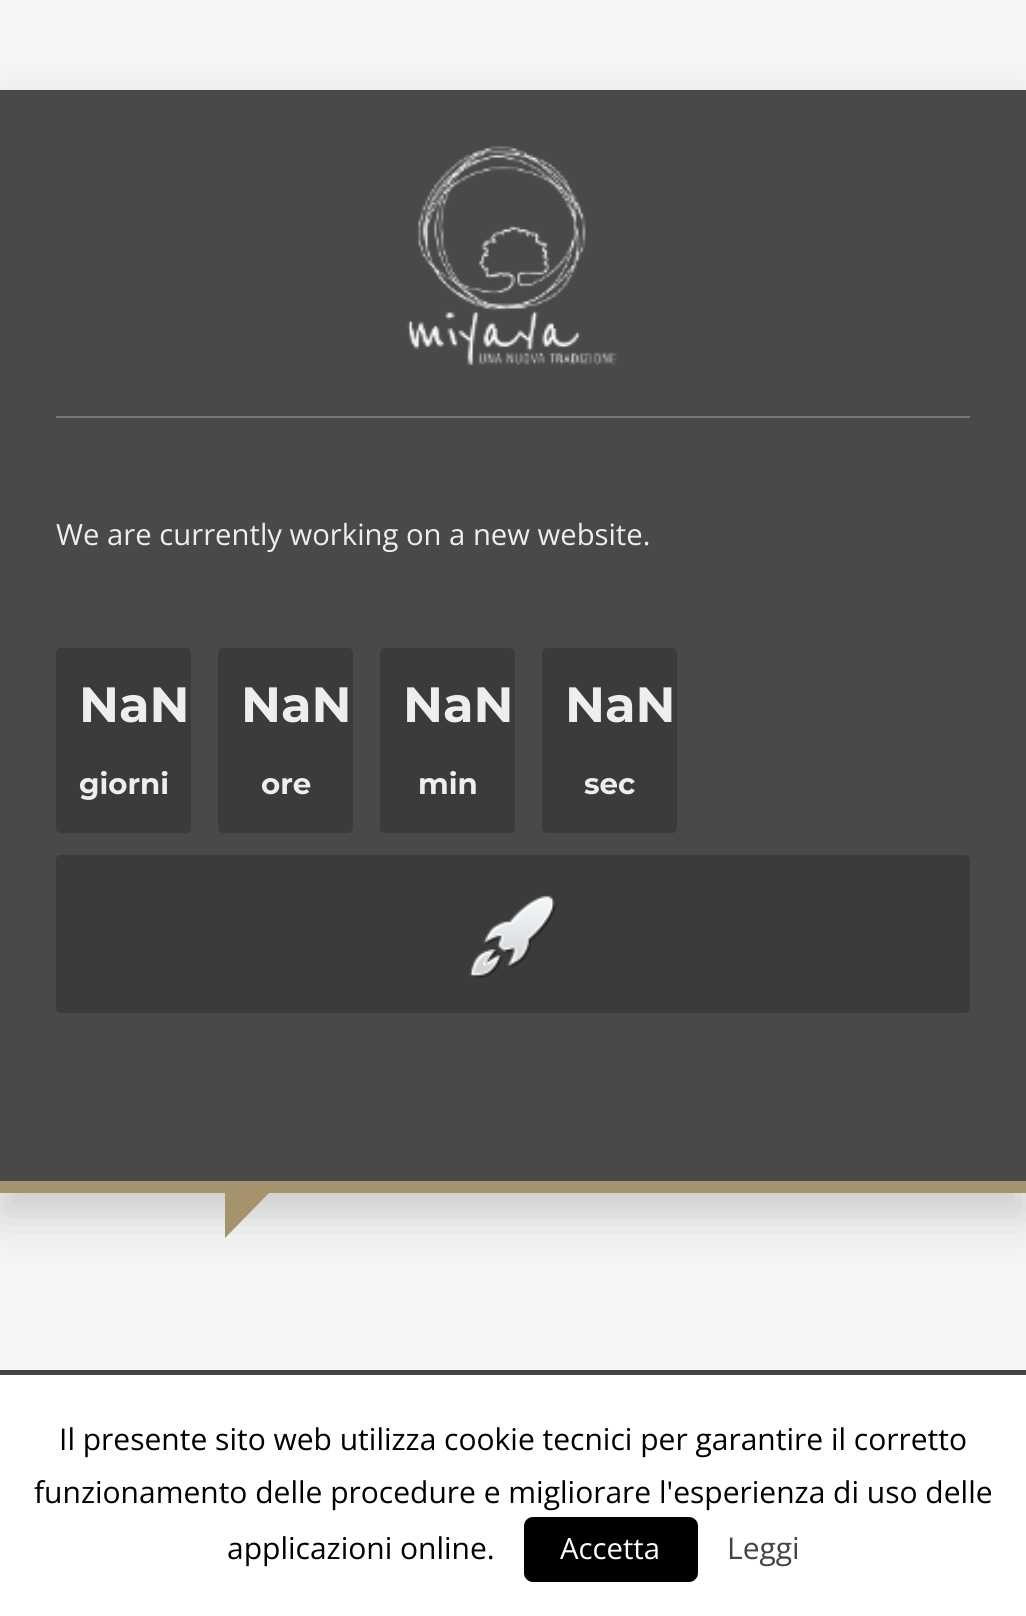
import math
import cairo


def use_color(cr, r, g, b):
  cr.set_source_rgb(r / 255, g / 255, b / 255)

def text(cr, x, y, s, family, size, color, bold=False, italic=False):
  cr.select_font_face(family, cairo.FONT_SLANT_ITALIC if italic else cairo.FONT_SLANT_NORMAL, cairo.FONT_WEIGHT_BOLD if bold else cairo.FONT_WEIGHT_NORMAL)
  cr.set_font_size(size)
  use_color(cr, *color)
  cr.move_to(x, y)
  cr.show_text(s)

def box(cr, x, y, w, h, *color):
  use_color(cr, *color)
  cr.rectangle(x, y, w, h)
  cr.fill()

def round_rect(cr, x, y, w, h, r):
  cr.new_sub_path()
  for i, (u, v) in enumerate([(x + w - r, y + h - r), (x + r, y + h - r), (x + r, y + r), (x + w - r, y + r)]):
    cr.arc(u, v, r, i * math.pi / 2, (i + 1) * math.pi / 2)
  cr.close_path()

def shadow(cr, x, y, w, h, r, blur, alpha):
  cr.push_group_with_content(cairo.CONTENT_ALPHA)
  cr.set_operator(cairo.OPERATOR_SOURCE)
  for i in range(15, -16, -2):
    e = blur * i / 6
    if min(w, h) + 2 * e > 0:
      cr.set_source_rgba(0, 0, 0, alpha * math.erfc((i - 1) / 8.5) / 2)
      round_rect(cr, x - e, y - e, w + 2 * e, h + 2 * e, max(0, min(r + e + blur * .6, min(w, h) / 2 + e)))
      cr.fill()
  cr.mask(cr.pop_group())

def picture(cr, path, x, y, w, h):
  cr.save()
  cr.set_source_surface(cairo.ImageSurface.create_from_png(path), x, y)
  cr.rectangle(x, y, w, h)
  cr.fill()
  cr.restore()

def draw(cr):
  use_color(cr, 245, 245, 245)
  cr.paint()
  cr.save()
  cr.set_fill_rule(cairo.FILL_RULE_EVEN_ODD)
  cr.new_path()
  cr.move_to(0, 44)
  cr.line_to(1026, 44)
  cr.line_to(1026, 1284)
  cr.line_to(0, 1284)
  cr.close_path()
  cr.move_to(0, 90)
  cr.line_to(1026, 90)
  cr.line_to(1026, 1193)
  cr.line_to(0, 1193)
  cr.close_path()
  cr.clip()
  use_color(cr, 204, 204, 204)
  shadow(cr, 0, 113, 1026, 1102, 0, 22.5, 1)
  cr.restore()
  cr.set_source_rgba(0, 0, 0, 0.7)
  cr.rectangle(0, 90, 1026, 1091)
  cr.fill()
  box(cr, 0, 1181, 1026, 12, 165, 147, 109)
  picture(cr, "img_01.png", 407, 146, 210, 221)
  box(cr, 56, 416, 914, 2, 119, 119, 119)
  use_color(cr, 59, 59, 59)
  round_rect(cr, 56, 648, 135, 185, 5)
  cr.fill()
  round_rect(cr, 218, 648, 135, 185, 5)
  cr.fill()
  round_rect(cr, 380, 648, 135, 185, 5)
  cr.fill()
  round_rect(cr, 542, 648, 135, 185, 5)
  cr.fill()
  round_rect(cr, 56, 855, 914, 158, 5)
  cr.fill()
  picture(cr, "img_02.png", 469, 895, 88, 83)
  use_color(cr, 165, 147, 109)
  cr.new_path()
  cr.move_to(225, 1192)
  cr.line_to(270, 1192)
  cr.line_to(225, 1238)
  cr.close_path()
  cr.fill()
  box(cr, 0, 1375, 1026, 241, 255, 255, 255)
  box(cr, 0, 1370, 1026, 5, 68, 68, 68)
  use_color(cr, 0, 0, 0)
  round_rect(cr, 524, 1517, 174, 65, 9)
  cr.fill()
  text(cr, 56, 545, "We are currently working on a new website.", "Open Sans", 29.25, (238, 238, 238))
  text(cr, 79, 722, "NaN", "Montserrat", 49.5, (238, 238, 238), bold=True)
  text(cr, 79, 794, "giorni", "Montserrat", 29.25, (238, 238, 238), bold=True)
  text(cr, 241, 722, "NaN", "Montserrat", 49.5, (238, 238, 238), bold=True)
  text(cr, 261, 794, "ore", "Montserrat", 29.25, (238, 238, 238), bold=True)
  text(cr, 403, 722, "NaN", "Montserrat", 49.5, (238, 238, 238), bold=True)
  text(cr, 418, 794, "min", "Montserrat", 29.25, (238, 238, 238), bold=True)
  text(cr, 565, 722, "NaN", "Montserrat", 49.5, (238, 238, 238), bold=True)
  text(cr, 584, 794, "sec", "Montserrat", 29.25, (238, 238, 238), bold=True)
  text(cr, 59, 1450, "Il presente sito web utilizza cookie tecnici per garantire il corretto", "Open Sans", 30, (0, 0, 0))
  text(cr, 34, 1503, "funzionamento delle procedure e migliorare l'esperienza di uso delle", "Open Sans", 30, (0, 0, 0))
  text(cr, 227, 1559, "applicazioni online.", "Open Sans", 30, (0, 0, 0))
  text(cr, 560, 1559, "Accetta", "Open Sans", 29.25, (255, 255, 255))
  text(cr, 727, 1559, "Leggi", "Open Sans", 30, (68, 68, 68))


surface = cairo.ImageSurface(cairo.FORMAT_RGB24, 1026, 1616)
cr = cairo.Context(surface)
options = cairo.FontOptions()
options.set_hint_metrics(cairo.HINT_METRICS_OFF)
options.set_hint_style(cairo.HINT_STYLE_NONE)
cr.set_font_options(options)
cr.set_miter_limit(4)
draw(cr)
surface.write_to_png("out.png")
